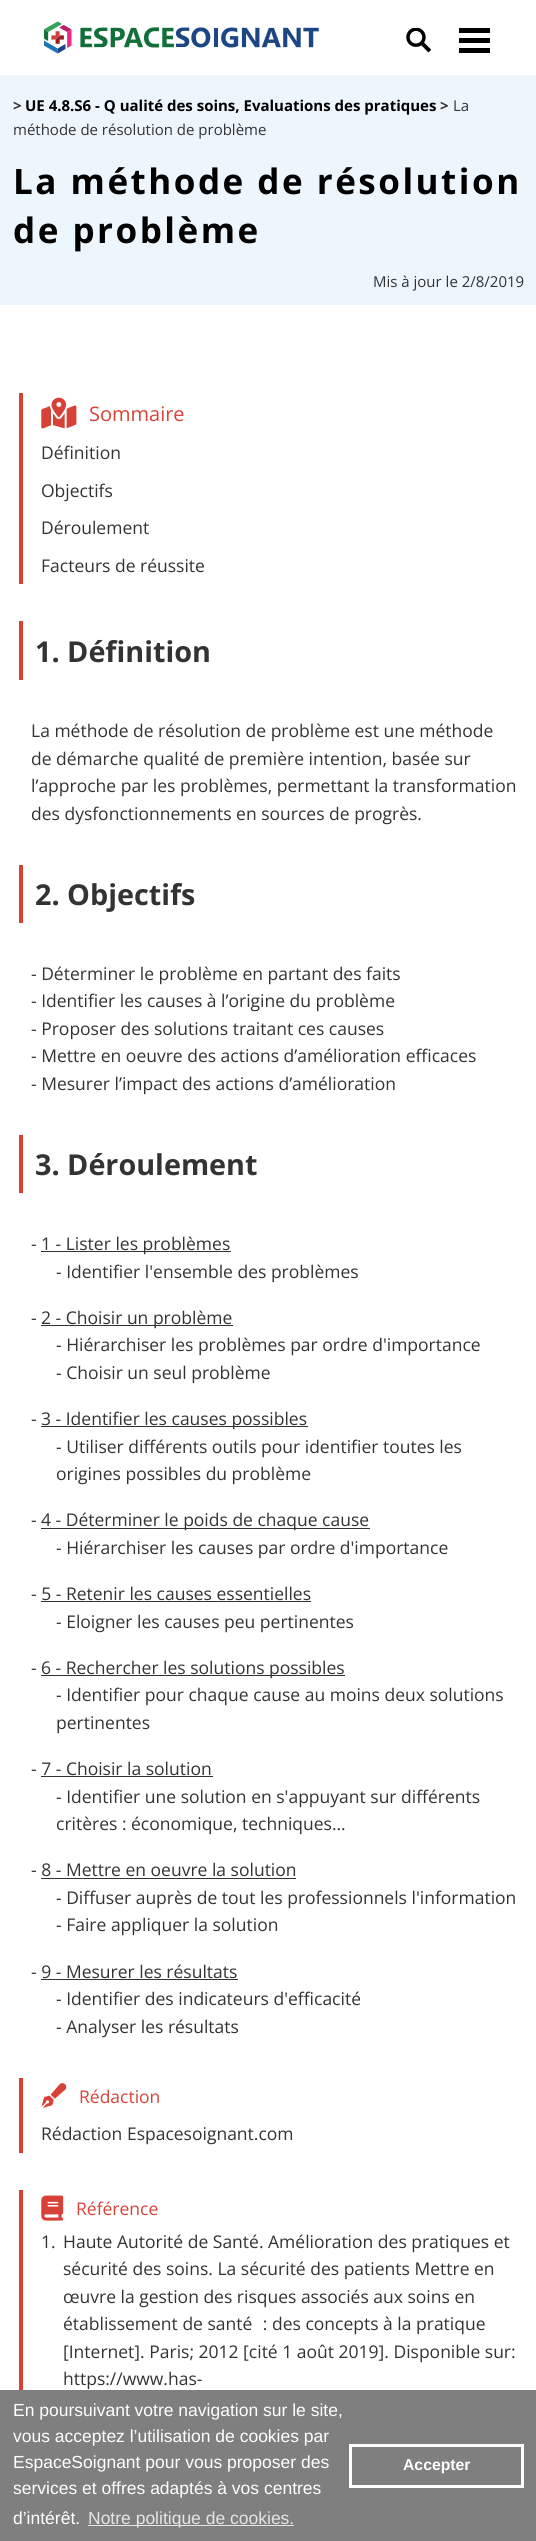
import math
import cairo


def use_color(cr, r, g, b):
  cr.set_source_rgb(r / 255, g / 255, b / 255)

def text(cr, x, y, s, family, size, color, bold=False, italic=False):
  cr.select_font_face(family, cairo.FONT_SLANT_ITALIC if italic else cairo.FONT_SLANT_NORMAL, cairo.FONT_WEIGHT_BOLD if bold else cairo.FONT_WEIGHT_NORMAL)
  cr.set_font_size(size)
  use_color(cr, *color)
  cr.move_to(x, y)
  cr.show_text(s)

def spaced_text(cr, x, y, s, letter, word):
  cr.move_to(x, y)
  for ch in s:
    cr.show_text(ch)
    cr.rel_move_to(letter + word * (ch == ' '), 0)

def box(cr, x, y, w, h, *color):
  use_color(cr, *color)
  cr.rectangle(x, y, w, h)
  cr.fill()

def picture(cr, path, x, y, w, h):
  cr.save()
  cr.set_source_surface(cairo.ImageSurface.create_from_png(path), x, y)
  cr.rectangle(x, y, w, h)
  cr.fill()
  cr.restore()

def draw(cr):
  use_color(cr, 255, 255, 255)
  cr.paint()
  picture(cr, "img_01.png", 44, 21, 275, 33)
  picture(cr, "img_02.png", 406, 28, 25, 25)
  box(cr, 459, 38, 31, 5, 0, 0, 0)
  box(cr, 459, 28, 31, 5, 0, 0, 0)
  box(cr, 459, 48, 31, 5, 0, 0, 0)
  box(cr, 0, 75, 536, 230, 237, 246, 253)
  box(cr, 19, 393, 4, 191, 216, 65, 54)
  picture(cr, "img_03.png", 41, 397, 36, 32)
  box(cr, 19, 621, 4, 59, 216, 65, 54)
  box(cr, 19, 865, 4, 58, 216, 65, 54)
  box(cr, 19, 1135, 4, 58, 216, 65, 54)
  box(cr, 41, 1251, 190, 1, 51, 51, 51)
  box(cr, 41, 1325, 192, 1, 51, 51, 51)
  box(cr, 41, 1426, 267, 1, 51, 51, 51)
  box(cr, 41, 1528, 329, 1, 51, 51, 51)
  box(cr, 41, 1601, 270, 1, 51, 51, 51)
  box(cr, 41, 1675, 304, 1, 51, 51, 51)
  box(cr, 41, 1776, 172, 1, 51, 51, 51)
  box(cr, 41, 1878, 255, 1, 51, 51, 51)
  box(cr, 41, 1979, 197, 1, 51, 51, 51)
  box(cr, 19, 2078, 4, 75, 216, 65, 54)
  picture(cr, "img_04.png", 41, 2083, 26, 25)
  box(cr, 19, 2190, 4, 200, 216, 65, 54)
  picture(cr, "img_05.png", 41, 2195, 23, 26)
  box(cr, 0, 2390, 536, 151, 127, 127, 127)
  box(cr, 88, 2525, 206, 1, 229, 229, 229)
  cr.rectangle(350.5, 2445.5, 172, 41)
  use_color(cr, 255, 255, 255)
  cr.set_line_width(3)
  cr.stroke()
  text(cr, 13, 111, ">", "Open Sans", 15, (51, 51, 51), bold=True)
  text(cr, 25, 111, "UE 4.8.S6 - Q ualité des soins, Evaluations des pratiques", "Open Sans", 15, (0, 0, 0), bold=True)
  text(cr, 440, 111, ">", "Open Sans", 15, (51, 51, 51), bold=True)
  text(cr, 453, 111, "La", "Open Sans", 15, (51, 51, 51))
  text(cr, 13, 135, "méthode de résolution de problème", "Open Sans", 15, (51, 51, 51))
  cr.select_font_face("Open Sans", cairo.FONT_SLANT_NORMAL, cairo.FONT_WEIGHT_BOLD)
  cr.set_font_size(35)
  use_color(cr, 0, 0, 0)
  spaced_text(cr, 13, 194, "La méthode de résolution", 2.5, 0)
  spaced_text(cr, 13, 243, "de problème", 2.5, 0)
  text(cr, 373, 287, "Mis à jour le 2/8/2019", "Open Sans", 15, (51, 51, 51))
  text(cr, 89, 421, "Sommaire", "Open Sans", 20, (216, 65, 54))
  text(cr, 41, 459, "Définition", "Open Sans", 17.5, (51, 51, 51))
  text(cr, 41, 497, "Objectifs", "Open Sans", 17.5, (51, 51, 51))
  text(cr, 41, 534, "Déroulement", "Open Sans", 17.5, (51, 51, 51))
  text(cr, 41, 572, "Facteurs de réussite", "Open Sans", 17.5, (51, 51, 51))
  text(cr, 35, 662, "1. Définition", "Open Sans", 28.75, (51, 51, 51), bold=True)
  text(cr, 31, 737, "La méthode de résolution de problème est une méthode", "Open Sans", 17.5, (51, 51, 51))
  text(cr, 31, 765, "de démarche qualité de première intention, basée sur", "Open Sans", 17.5, (51, 51, 51))
  text(cr, 31, 792, "l’approche par les problèmes, permettant la transformation", "Open Sans", 17.5, (51, 51, 51))
  text(cr, 31, 820, "des dysfonctionnements en sources de progrès.", "Open Sans", 17.5, (51, 51, 51))
  text(cr, 35, 905, "2. Objectifs", "Open Sans", 28.75, (51, 51, 51), bold=True)
  text(cr, 31, 980, "- Déterminer le problème en partant des faits", "Open Sans", 17.5, (51, 51, 51))
  text(cr, 31, 1007, "- Identifier les causes à l’origine du problème", "Open Sans", 17.5, (51, 51, 51))
  text(cr, 31, 1035, "- Proposer des solutions traitant ces causes", "Open Sans", 17.5, (51, 51, 51))
  text(cr, 31, 1062, "- Mettre en oeuvre des actions d’amélioration efficaces", "Open Sans", 17.5, (51, 51, 51))
  text(cr, 31, 1090, "- Mesurer l’impact des actions d’amélioration", "Open Sans", 17.5, (51, 51, 51))
  text(cr, 35, 1175, "3. Déroulement", "Open Sans", 28.75, (51, 51, 51), bold=True)
  text(cr, 31, 1250, "-", "Open Sans", 17.5, (51, 51, 51))
  text(cr, 41, 1250, "1 - Lister les problèmes", "Open Sans", 17.5, (51, 51, 51))
  text(cr, 56, 1278, "- Identifier l'ensemble des problèmes", "Open Sans", 17.5, (51, 51, 51))
  text(cr, 31, 1324, "-", "Open Sans", 17.5, (51, 51, 51))
  text(cr, 41, 1324, "2 - Choisir un problème", "Open Sans", 17.5, (51, 51, 51))
  text(cr, 56, 1351, "- Hiérarchiser les problèmes par ordre d'importance", "Open Sans", 17.5, (51, 51, 51))
  text(cr, 56, 1379, "- Choisir un seul problème", "Open Sans", 17.5, (51, 51, 51))
  text(cr, 31, 1425, "-", "Open Sans", 17.5, (51, 51, 51))
  text(cr, 41, 1425, "3 - Identifier les causes possibles", "Open Sans", 17.5, (51, 51, 51))
  text(cr, 56, 1453, "- Utiliser différents outils pour identifier toutes les", "Open Sans", 17.5, (51, 51, 51))
  text(cr, 56, 1480, "origines possibles du problème", "Open Sans", 17.5, (51, 51, 51))
  text(cr, 31, 1526, "-", "Open Sans", 17.5, (51, 51, 51))
  text(cr, 41, 1526, "4 - Déterminer le poids de chaque cause", "Open Sans", 17.5, (51, 51, 51))
  text(cr, 56, 1554, "- Hiérarchiser les causes par ordre d'importance", "Open Sans", 17.5, (51, 51, 51))
  text(cr, 31, 1600, "- 5 - Retenir les causes essentielles", "Open Sans", 17.5, (51, 51, 51))
  text(cr, 56, 1628, "- Eloigner les causes peu pertinentes", "Open Sans", 17.5, (51, 51, 51))
  text(cr, 31, 1674, "-", "Open Sans", 17.5, (51, 51, 51))
  text(cr, 41, 1674, "6 - Rechercher les solutions possibles", "Open Sans", 17.5, (51, 51, 51))
  text(cr, 56, 1701, "- Identifier pour chaque cause au moins deux solutions", "Open Sans", 17.5, (51, 51, 51))
  text(cr, 56, 1729, "pertinentes", "Open Sans", 17.5, (51, 51, 51))
  text(cr, 31, 1775, "- 7 - Choisir la solution", "Open Sans", 17.5, (51, 51, 51))
  text(cr, 56, 1803, "- Identifier une solution en s'appuyant sur différents", "Open Sans", 17.5, (51, 51, 51))
  text(cr, 56, 1830, "critères : économique, techniques...", "Open Sans", 17.5, (51, 51, 51))
  text(cr, 31, 1876, "- 8 - Mettre en oeuvre la solution", "Open Sans", 17.5, (51, 51, 51))
  text(cr, 56, 1904, "- Diffuser auprès de tout les professionnels l'information", "Open Sans", 17.5, (51, 51, 51))
  text(cr, 56, 1931, "- Faire appliquer la solution", "Open Sans", 17.5, (51, 51, 51))
  text(cr, 31, 1978, "- 9 - Mesurer les résultats", "Open Sans", 17.5, (51, 51, 51))
  text(cr, 56, 2005, "- Identifier des indicateurs d'efficacité", "Open Sans", 17.5, (51, 51, 51))
  text(cr, 56, 2033, "- Analyser les résultats", "Open Sans", 17.5, (51, 51, 51))
  text(cr, 79, 2103, "Rédaction", "Open Sans", 17.5, (216, 65, 54))
  text(cr, 41, 2140, "Rédaction Espacesoignant.com", "Open Sans", 17.5, (51, 51, 51))
  text(cr, 76, 2215, "Référence", "Open Sans", 17.5, (216, 65, 54))
  text(cr, 41, 2248, "1.", "Open Sans", 17.5, (51, 51, 51))
  text(cr, 63, 2248, "Haute Autorité de Santé. Amélioration des pratiques et", "Open Sans", 17.5, (51, 51, 51))
  text(cr, 63, 2275, "sécurité des soins. La sécurité des patients Mettre en", "Open Sans", 17.5, (51, 51, 51))
  text(cr, 63, 2303, "œuvre la gestion des risques associés aux soins en", "Open Sans", 17.5, (51, 51, 51))
  text(cr, 63, 2330, "établissement de santé : des concepts à la pratique", "Open Sans", 17.5, (51, 51, 51))
  text(cr, 63, 2358, "[Internet]. Paris; 2012 [cité 1 août 2019]. Disponible sur:", "Open Sans", 17.5, (51, 51, 51))
  text(cr, 63, 2385, "https://www.has-", "Open Sans", 17.5, (51, 51, 51))
  text(cr, 13, 2416, "En poursuivant votre navigation sur le site,", "Liberation Sans", 17.5, (255, 255, 255))
  text(cr, 13, 2442, "vous acceptez l’utilisation de cookies par", "Liberation Sans", 17.5, (255, 255, 255))
  text(cr, 13, 2468, "EspaceSoignant pour vous proposer des", "Liberation Sans", 17.5, (255, 255, 255))
  text(cr, 13, 2494, "services et offres adaptés à vos centres", "Liberation Sans", 17.5, (255, 255, 255))
  text(cr, 13, 2524, "d’intérêt.", "Liberation Sans", 17.5, (255, 255, 255))
  text(cr, 88, 2524, "Notre politique de cookies.", "Liberation Sans", 17.5, (229, 229, 229))
  text(cr, 403, 2470, "Accepter", "Liberation Sans", 15.75, (255, 255, 255), bold=True)


surface = cairo.ImageSurface(cairo.FORMAT_RGB24, 536, 2541)
cr = cairo.Context(surface)
options = cairo.FontOptions()
options.set_hint_metrics(cairo.HINT_METRICS_OFF)
options.set_hint_style(cairo.HINT_STYLE_NONE)
cr.set_font_options(options)
cr.set_miter_limit(4)
draw(cr)
surface.write_to_png("out.png")
